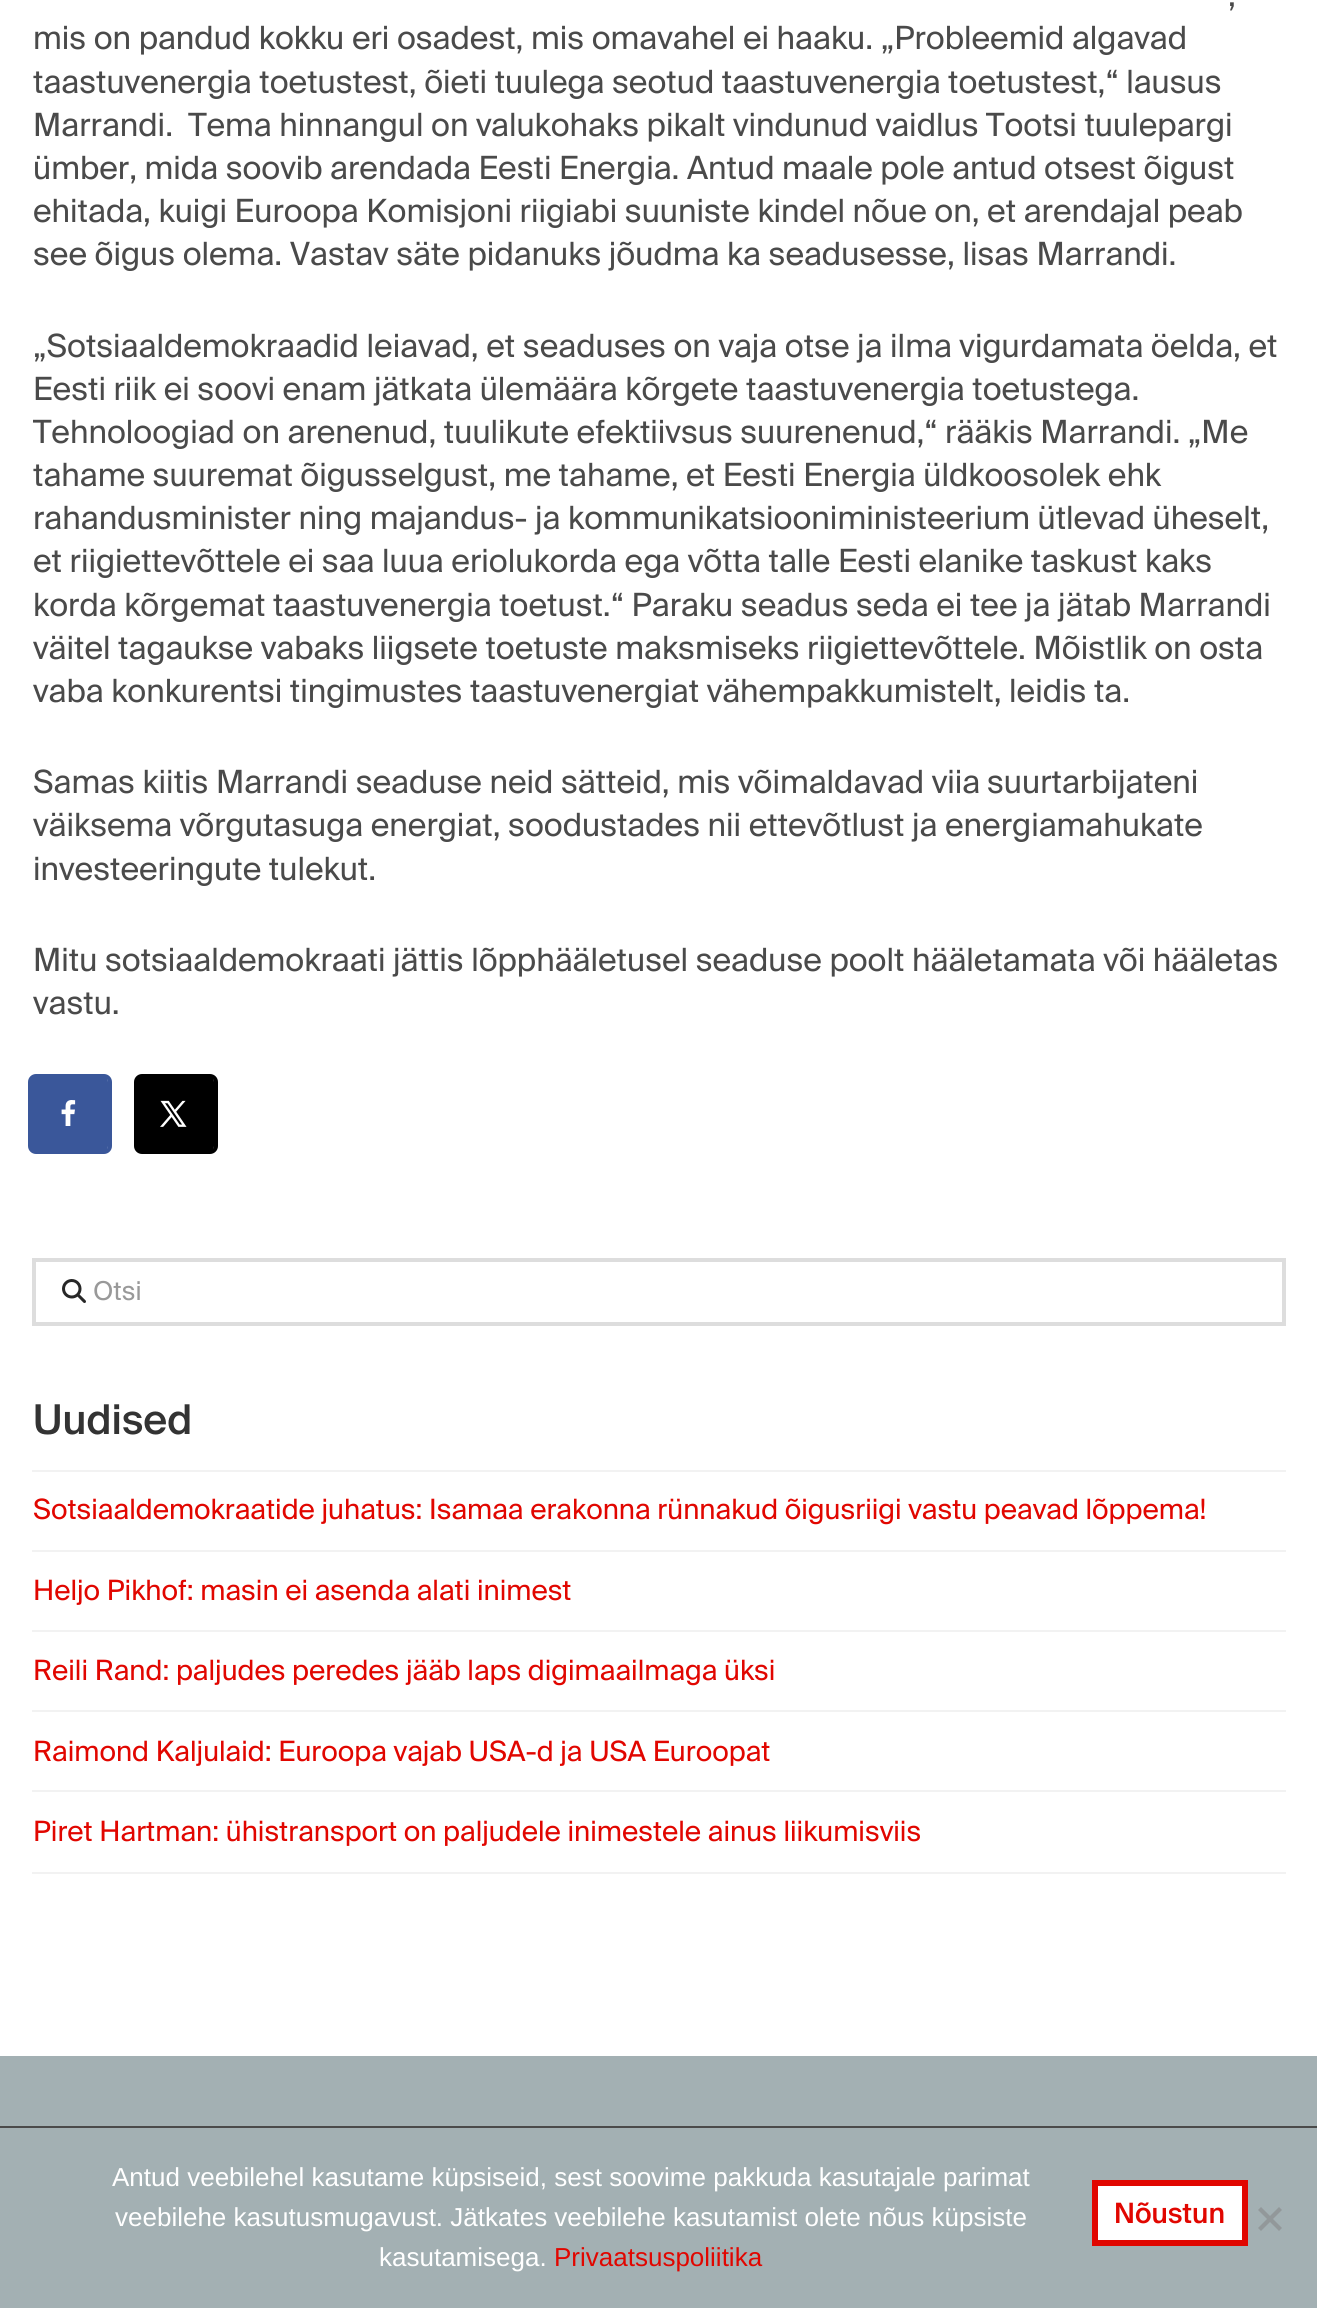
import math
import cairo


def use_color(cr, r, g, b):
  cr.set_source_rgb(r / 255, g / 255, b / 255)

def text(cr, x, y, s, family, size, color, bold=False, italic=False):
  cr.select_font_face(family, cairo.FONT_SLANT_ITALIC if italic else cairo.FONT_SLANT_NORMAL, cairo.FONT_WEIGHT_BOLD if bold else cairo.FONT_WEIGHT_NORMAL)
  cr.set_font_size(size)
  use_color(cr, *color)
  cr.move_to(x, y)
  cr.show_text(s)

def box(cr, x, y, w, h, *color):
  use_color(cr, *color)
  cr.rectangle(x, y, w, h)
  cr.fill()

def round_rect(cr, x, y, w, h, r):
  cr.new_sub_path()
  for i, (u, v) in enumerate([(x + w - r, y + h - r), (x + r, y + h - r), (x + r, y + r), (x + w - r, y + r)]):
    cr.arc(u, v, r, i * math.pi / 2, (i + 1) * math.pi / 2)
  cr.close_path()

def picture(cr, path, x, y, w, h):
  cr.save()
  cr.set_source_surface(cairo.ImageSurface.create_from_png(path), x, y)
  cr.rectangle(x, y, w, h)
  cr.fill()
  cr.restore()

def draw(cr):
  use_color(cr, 255, 255, 255)
  cr.paint()
  round_rect(cr, 34, 1076, 76, 76, 6)
  use_color(cr, 58, 87, 154)
  cr.set_line_width(4)
  cr.stroke()
  round_rect(cr, 30, 1076, 76, 76, 6)
  cr.fill_preserve()
  cr.stroke()
  picture(cr, "img_01.png", 61, 1100, 15, 26)
  round_rect(cr, 140, 1076, 76, 76, 6)
  use_color(cr, 0, 0, 0)
  cr.stroke()
  round_rect(cr, 136, 1076, 76, 76, 6)
  cr.fill_preserve()
  cr.stroke()
  picture(cr, "img_02.png", 160, 1100, 27, 27)
  cr.rectangle(34, 1260, 1250, 64)
  use_color(cr, 221, 221, 221)
  cr.stroke()
  picture(cr, "img_03.png", 62, 1279, 24, 24)
  box(cr, 32, 1470, 1254, 2, 242, 242, 242)
  box(cr, 32, 1550, 1254, 2, 242, 242, 242)
  box(cr, 32, 1630, 1254, 2, 242, 242, 242)
  box(cr, 32, 1710, 1254, 2, 242, 242, 242)
  box(cr, 32, 1790, 1254, 2, 242, 242, 242)
  box(cr, 32, 1872, 1254, 2, 242, 242, 242)
  box(cr, 0, 2056, 1317, 70, 163, 176, 179)
  box(cr, 0, 2128, 1317, 180, 163, 176, 179)
  box(cr, 0, 2126, 1317, 2, 74, 74, 74)
  use_color(cr, 255, 255, 255)
  cr.rectangle(1095, 2183, 150, 60)
  cr.fill_preserve()
  use_color(cr, 225, 6, 0)
  cr.set_line_width(6)
  cr.stroke()
  use_color(cr, 146, 152, 154)
  cr.new_path()
  cr.move_to(1279, 2207)
  cr.line_to(1282, 2210)
  cr.line_to(1261, 2231)
  cr.line_to(1258, 2228)
  cr.close_path()
  cr.fill()
  cr.new_path()
  cr.move_to(1258, 2210)
  cr.line_to(1261, 2207)
  cr.line_to(1282, 2228)
  cr.line_to(1279, 2231)
  cr.close_path()
  cr.fill()
  text(cr, 1228, 6, ",", "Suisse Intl", 32, (74, 74, 74))
  text(cr, 33, 49, "mis on pandud kokku eri osadest, mis omavahel ei haaku. „Probleemid algavad", "Suisse Intl", 32, (74, 74, 74))
  text(cr, 33, 93, "taastuvenergia toetustest, õieti tuulega seotud taastuvenergia toetustest,“ lausus", "Suisse Intl", 32, (74, 74, 74))
  text(cr, 33, 136, "Marrandi.  Tema hinnangul on v", "Suisse Intl", 32, (74, 74, 74))
  text(cr, 491, 136, "alukohaks pikalt vindunud vaidlus Tootsi tuulepargi", "Suisse Intl", 32, (74, 74, 74))
  text(cr, 33, 179, "ümber, mida soovib arendada Eesti Energia. Antud maale pole antud otsest õigust", "Suisse Intl", 32, (74, 74, 74))
  text(cr, 33, 222, "ehitada, kuigi Euroopa Komisjoni riigiabi suuniste kindel nõue on, et arendajal peab", "Suisse Intl", 32, (74, 74, 74))
  text(cr, 33, 265, "see õigus olema. Vastav säte pidanuks jõudma ka seadusesse, lisas Marrandi.", "Suisse Intl", 32, (74, 74, 74))
  text(cr, 33, 357, "„Sotsiaaldemokraadid leiavad, et seaduses on vaja otse ja ilma vigurdamata öelda, et", "Suisse Intl", 32, (74, 74, 74))
  text(cr, 33, 400, "Eesti riik ei soovi enam jätkata ülemäära kõrgete taastuvenergia toetustega.", "Suisse Intl", 32, (74, 74, 74))
  text(cr, 33, 443, "Tehnoloogiad on arenenud, tuulikute efektiivsus suurenenud,“ rääkis Marrandi. „Me", "Suisse Intl", 32, (74, 74, 74))
  text(cr, 33, 486, "tahame suuremat õigusselgust, me tahame, et Eesti Energia üldkoosolek ehk", "Suisse Intl", 32, (74, 74, 74))
  text(cr, 33, 529, "rahandusminister ning majandus- ja kommunikatsiooniministeerium ütlevad üheselt,", "Suisse Intl", 32, (74, 74, 74))
  text(cr, 33, 572, "et riigiettevõttele ei saa luua eriolukorda ega võtta talle Eesti elanike taskust kaks", "Suisse Intl", 32, (74, 74, 74))
  text(cr, 33, 616, "korda kõrgemat taastuvenergia toetust.“ Paraku seadus seda ei tee ja jätab Marrandi", "Suisse Intl", 32, (74, 74, 74))
  text(cr, 33, 659, "väitel tagaukse vabaks liigsete toetuste maksmiseks riigiettevõttele. Mõistlik on osta", "Suisse Intl", 32, (74, 74, 74))
  text(cr, 33, 702, "vaba konkurentsi tingimustes taastuvenergiat vähempakkumistelt, leidis ta.", "Suisse Intl", 32, (74, 74, 74))
  text(cr, 33, 793, "Samas kiitis Marrandi seaduse neid sätteid, mis võimaldavad viia", "Suisse Intl", 32, (74, 74, 74))
  text(cr, 987, 793, "suurtarbijateni", "Suisse Intl", 32, (74, 74, 74))
  text(cr, 33, 836, "väiksema võrgutasuga energiat, soodustades nii ettevõtlust ja energiamahukate", "Suisse Intl", 32, (74, 74, 74))
  text(cr, 33, 880, "investeeringute tulekut.", "Suisse Intl", 32, (74, 74, 74))
  text(cr, 33, 971, "Mitu sotsiaaldemokraati jättis lõpphääletusel seaduse poolt hääletamata või hääletas", "Suisse Intl", 32, (74, 74, 74))
  text(cr, 33, 1014, "vastu.", "Suisse Intl", 32, (74, 74, 74))
  text(cr, 93, 1300, "Otsi", "Suisse Intl", 26, (153, 153, 153))
  text(cr, 33, 1434, "Uudised", "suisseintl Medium", 41, (51, 51, 51))
  text(cr, 33, 1519, "Sotsiaaldemokraatide juhatus: Isamaa erakonna rünnakud õigusriigi vastu peavad lõppema!", "Suisse Intl", 28, (225, 6, 0))
  text(cr, 33, 1600, "Heljo Pikhof: masin ei asenda alati inimest", "Suisse Intl", 28, (225, 6, 0))
  text(cr, 33, 1680, "Reili Rand: paljudes peredes jääb laps digimaailmaga üksi", "Suisse Intl", 28, (225, 6, 0))
  text(cr, 33, 1761, "Raimond Kaljulaid: Euroopa vajab USA-d ja USA Euroopat", "Suisse Intl", 28, (225, 6, 0))
  text(cr, 33, 1841, "Piret Hartman: ühistransport on paljudele inimestele ainus liikumisviis", "Suisse Intl", 28, (225, 6, 0))
  text(cr, 112, 2186, "Antud veebilehel kasutame küpsiseid, sest soovime pakkuda kasutajale parimat", "Liberation Sans", 26, (255, 255, 255))
  text(cr, 115, 2226, "veebilehe kasutusmugavust. Jätkates veebilehe kasutamist olete nõus küpsiste", "Liberation Sans", 26, (255, 255, 255))
  text(cr, 379, 2266, "kasutamisega.", "Liberation Sans", 26, (255, 255, 255))
  text(cr, 554, 2266, "Privaatsuspoliitika", "Liberation Sans", 26, (225, 6, 0))
  text(cr, 1114, 2223, "Nõustun", "suisseintl Medium", 28, (225, 6, 0))


surface = cairo.ImageSurface(cairo.FORMAT_RGB24, 1317, 2308)
cr = cairo.Context(surface)
options = cairo.FontOptions()
options.set_hint_metrics(cairo.HINT_METRICS_OFF)
options.set_hint_style(cairo.HINT_STYLE_NONE)
cr.set_font_options(options)
cr.set_miter_limit(4)
draw(cr)
surface.write_to_png("out.png")
